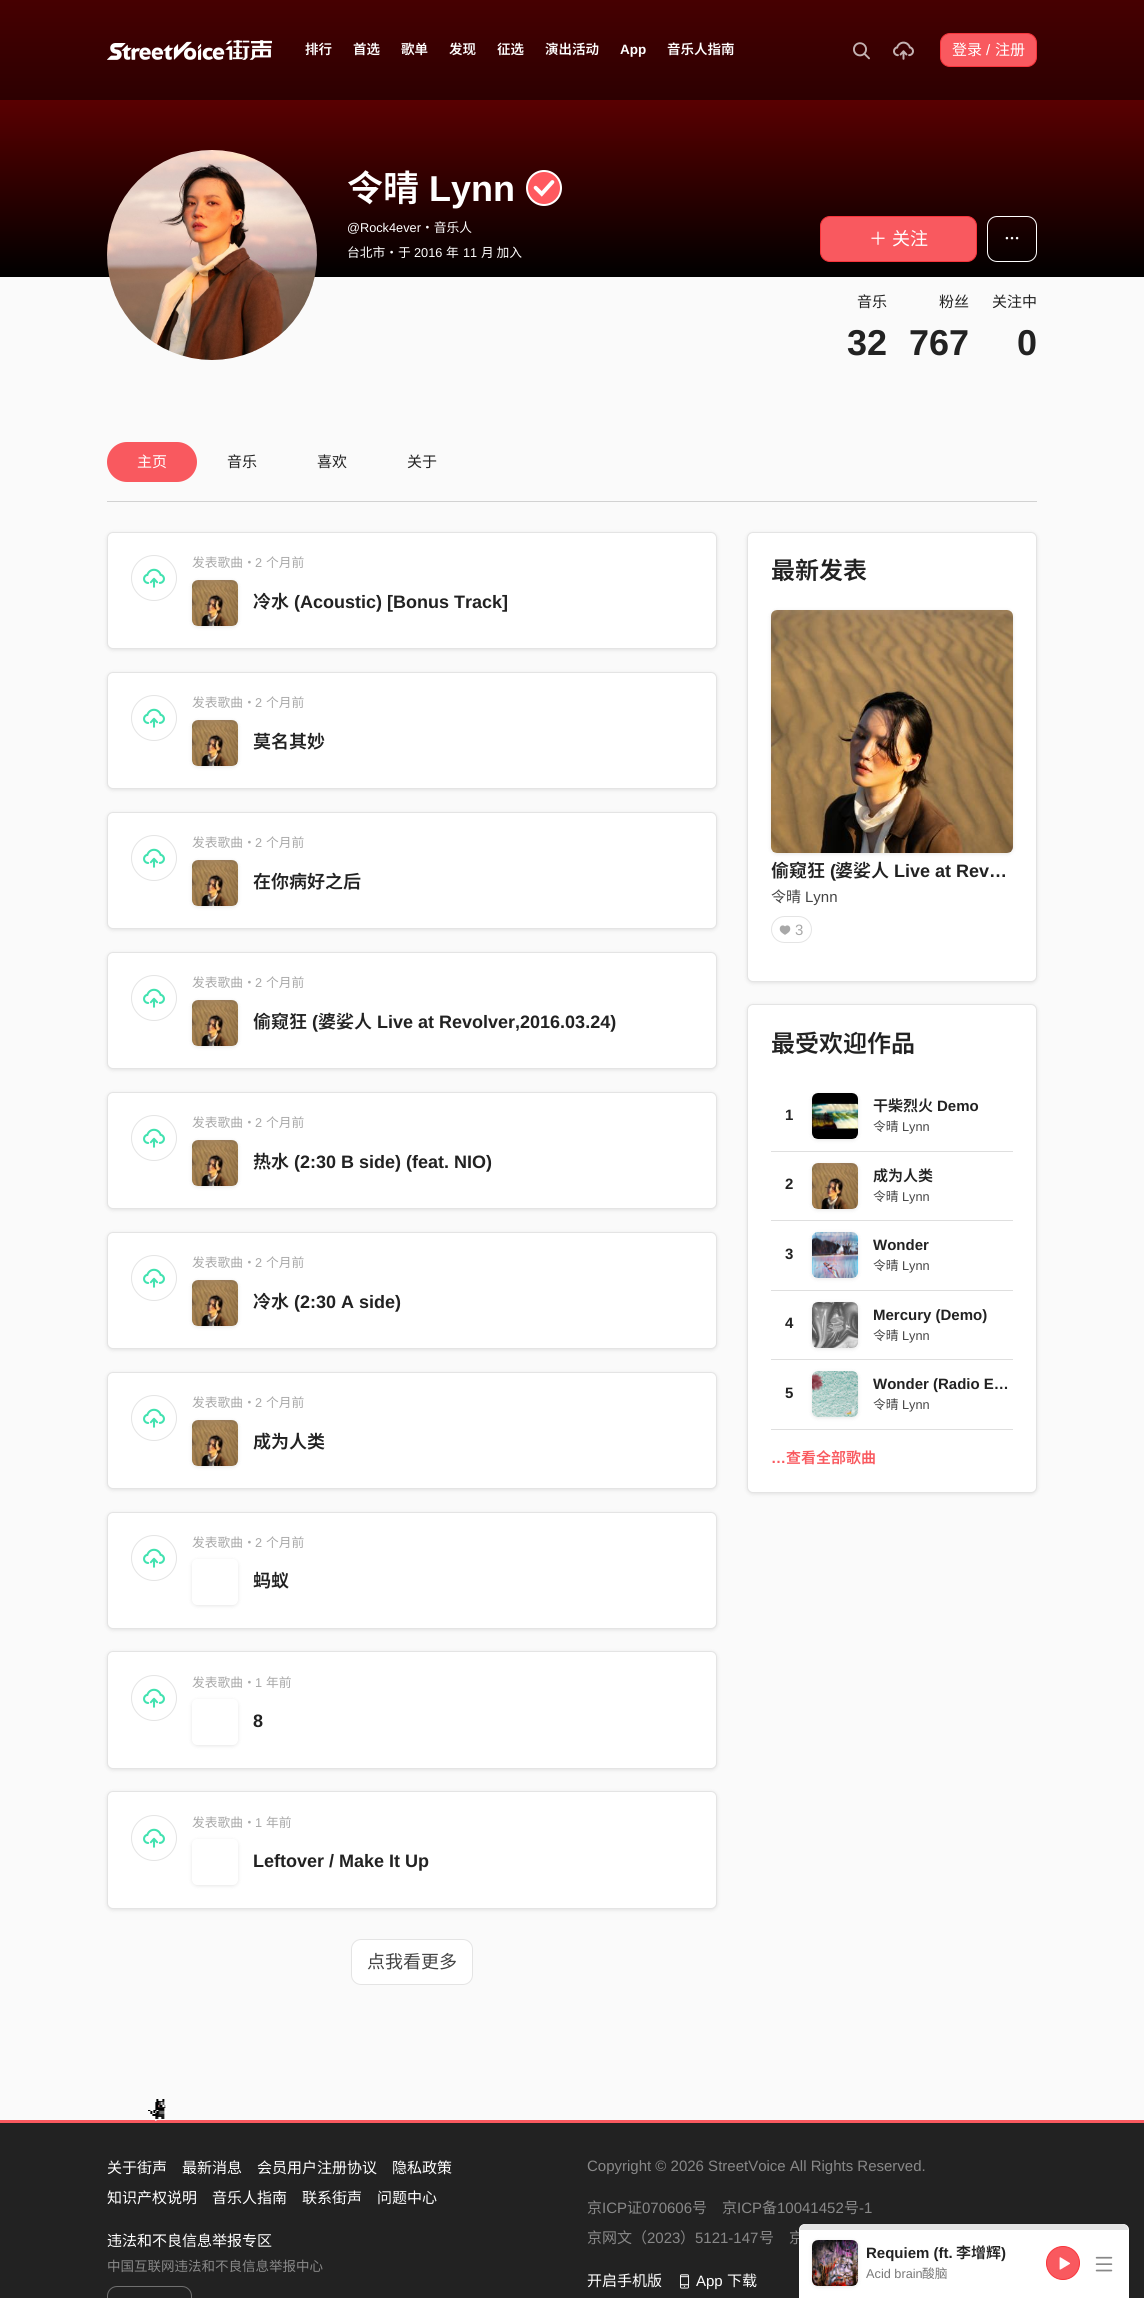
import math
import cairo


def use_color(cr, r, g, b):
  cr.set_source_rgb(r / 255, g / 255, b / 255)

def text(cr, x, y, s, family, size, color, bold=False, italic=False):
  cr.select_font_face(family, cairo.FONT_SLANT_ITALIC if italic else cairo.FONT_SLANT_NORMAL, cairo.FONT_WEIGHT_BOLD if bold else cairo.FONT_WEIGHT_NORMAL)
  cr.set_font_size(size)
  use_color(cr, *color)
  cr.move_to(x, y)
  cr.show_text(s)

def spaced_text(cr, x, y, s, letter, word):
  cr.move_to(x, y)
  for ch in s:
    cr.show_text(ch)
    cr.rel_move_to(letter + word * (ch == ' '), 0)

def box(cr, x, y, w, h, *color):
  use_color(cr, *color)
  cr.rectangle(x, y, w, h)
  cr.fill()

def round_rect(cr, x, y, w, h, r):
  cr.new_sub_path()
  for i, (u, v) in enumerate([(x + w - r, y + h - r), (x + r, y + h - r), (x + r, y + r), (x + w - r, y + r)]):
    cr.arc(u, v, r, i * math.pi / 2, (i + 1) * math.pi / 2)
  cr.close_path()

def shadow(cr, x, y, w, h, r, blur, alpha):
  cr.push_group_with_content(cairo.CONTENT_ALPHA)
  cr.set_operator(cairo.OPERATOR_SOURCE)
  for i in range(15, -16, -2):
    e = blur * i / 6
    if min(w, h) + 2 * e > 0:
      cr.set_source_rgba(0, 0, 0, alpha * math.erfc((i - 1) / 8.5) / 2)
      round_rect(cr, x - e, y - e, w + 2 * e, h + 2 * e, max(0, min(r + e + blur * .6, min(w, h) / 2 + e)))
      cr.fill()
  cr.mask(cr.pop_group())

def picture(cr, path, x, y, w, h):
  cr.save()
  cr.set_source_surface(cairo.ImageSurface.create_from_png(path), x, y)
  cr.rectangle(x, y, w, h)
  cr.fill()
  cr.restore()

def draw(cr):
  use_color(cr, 250, 250, 250)
  cr.paint()
  gradient = cairo.LinearGradient(572, 0, 572, 277)
  gradient.add_color_stop_rgba(0, 0.275, 0, 0.004, 1)
  gradient.add_color_stop_rgba(1, 0, 0, 0, 1)
  cr.set_source(gradient)
  cr.rectangle(0, 0, 1144, 100)
  cr.fill()
  picture(cr, "img_01.png", 107, 40, 165, 20)
  picture(cr, "img_02.png", 853, 42, 17, 18)
  picture(cr, "img_03.png", 893, 41, 21, 19)
  use_color(cr, 249, 89, 95)
  round_rect(cr, 940.5, 33.5, 96, 33, 9.5)
  cr.fill_preserve()
  use_color(cr, 248, 52, 59)
  cr.set_line_width(1)
  cr.stroke()
  gradient = cairo.LinearGradient(572, 0, 572, 277)
  gradient.add_color_stop_rgba(0, 0.549, 0, 0.004, 1)
  gradient.add_color_stop_rgba(1, 0, 0, 0, 1)
  cr.set_source(gradient)
  cr.rectangle(0, 100, 1144, 177)
  cr.fill()
  picture(cr, "img_04.png", 107, 150, 210, 210)
  picture(cr, "img_05.png", 526, 170, 36, 36)
  use_color(cr, 249, 89, 95)
  round_rect(cr, 820.5, 216.5, 156, 45, 9.5)
  cr.fill_preserve()
  use_color(cr, 248, 52, 59)
  cr.stroke()
  round_rect(cr, 987.5, 216.5, 49, 45, 9.5)
  use_color(cr, 255, 255, 255)
  cr.stroke()
  picture(cr, "img_06.png", 1005, 236, 14, 4)
  use_color(cr, 249, 89, 95)
  round_rect(cr, 107, 442, 90, 40, 20)
  cr.fill()
  box(cr, 107, 501, 930, 1, 210, 210, 210)
  use_color(cr, 0, 0, 0)
  shadow(cr, 107, 533, 610, 117, 6, 2, 0.1)
  use_color(cr, 255, 255, 255)
  round_rect(cr, 107.5, 532.5, 609, 116, 5.5)
  cr.fill_preserve()
  use_color(cr, 228, 228, 228)
  cr.stroke()
  cr.arc(154, 578, 22.5, 0, 2 * math.pi)
  cr.stroke()
  picture(cr, "img_07.png", 143, 568, 22, 20)
  use_color(cr, 0, 0, 0)
  shadow(cr, 192, 581, 46, 46, 6, 2, 0.1)
  picture(cr, "img_08.png", 192, 580, 46, 46)
  shadow(cr, 107, 673, 610, 117, 6, 2, 0.1)
  use_color(cr, 255, 255, 255)
  round_rect(cr, 107.5, 672.5, 609, 116, 5.5)
  cr.fill_preserve()
  use_color(cr, 228, 228, 228)
  cr.stroke()
  cr.arc(154, 718, 22.5, 0, 2 * math.pi)
  cr.stroke()
  picture(cr, "img_07.png", 143, 708, 22, 20)
  use_color(cr, 0, 0, 0)
  shadow(cr, 192, 721, 46, 46, 6, 2, 0.1)
  picture(cr, "img_09.png", 192, 720, 46, 46)
  shadow(cr, 107, 813, 610, 117, 6, 2, 0.1)
  use_color(cr, 255, 255, 255)
  round_rect(cr, 107.5, 812.5, 609, 116, 5.5)
  cr.fill_preserve()
  use_color(cr, 228, 228, 228)
  cr.stroke()
  cr.arc(154, 858, 22.5, 0, 2 * math.pi)
  cr.stroke()
  picture(cr, "img_07.png", 143, 848, 22, 20)
  use_color(cr, 0, 0, 0)
  shadow(cr, 192, 861, 46, 46, 6, 2, 0.1)
  picture(cr, "img_08.png", 192, 860, 46, 46)
  shadow(cr, 107, 953, 610, 117, 6, 2, 0.1)
  use_color(cr, 255, 255, 255)
  round_rect(cr, 107.5, 952.5, 609, 116, 5.5)
  cr.fill_preserve()
  use_color(cr, 228, 228, 228)
  cr.stroke()
  cr.arc(154, 998, 22.5, 0, 2 * math.pi)
  cr.stroke()
  picture(cr, "img_07.png", 143, 988, 22, 20)
  use_color(cr, 0, 0, 0)
  shadow(cr, 192, 1001, 46, 46, 6, 2, 0.1)
  picture(cr, "img_08.png", 192, 1000, 46, 46)
  shadow(cr, 107, 1093, 610, 117, 6, 2, 0.1)
  use_color(cr, 255, 255, 255)
  round_rect(cr, 107.5, 1092.5, 609, 116, 5.5)
  cr.fill_preserve()
  use_color(cr, 228, 228, 228)
  cr.stroke()
  cr.arc(154, 1138, 22.5, 0, 2 * math.pi)
  cr.stroke()
  picture(cr, "img_07.png", 143, 1128, 22, 20)
  use_color(cr, 0, 0, 0)
  shadow(cr, 192, 1141, 46, 46, 6, 2, 0.1)
  picture(cr, "img_08.png", 192, 1140, 46, 46)
  shadow(cr, 107, 1233, 610, 117, 6, 2, 0.1)
  use_color(cr, 255, 255, 255)
  round_rect(cr, 107.5, 1232.5, 609, 116, 5.5)
  cr.fill_preserve()
  use_color(cr, 228, 228, 228)
  cr.stroke()
  cr.arc(154, 1278, 22.5, 0, 2 * math.pi)
  cr.stroke()
  picture(cr, "img_07.png", 143, 1268, 22, 20)
  use_color(cr, 0, 0, 0)
  shadow(cr, 192, 1281, 46, 46, 6, 2, 0.1)
  picture(cr, "img_08.png", 192, 1280, 46, 46)
  shadow(cr, 107, 1373, 610, 117, 6, 2, 0.1)
  use_color(cr, 255, 255, 255)
  round_rect(cr, 107.5, 1372.5, 609, 116, 5.5)
  cr.fill_preserve()
  use_color(cr, 228, 228, 228)
  cr.stroke()
  cr.arc(154, 1418, 22.5, 0, 2 * math.pi)
  cr.stroke()
  picture(cr, "img_07.png", 143, 1408, 22, 20)
  use_color(cr, 0, 0, 0)
  shadow(cr, 192, 1421, 46, 46, 6, 2, 0.1)
  picture(cr, "img_08.png", 192, 1420, 46, 46)
  shadow(cr, 107, 1513, 610, 117, 6, 2, 0.1)
  use_color(cr, 255, 255, 255)
  round_rect(cr, 107.5, 1512.5, 609, 116, 5.5)
  cr.fill_preserve()
  use_color(cr, 228, 228, 228)
  cr.stroke()
  cr.arc(154, 1558, 22.5, 0, 2 * math.pi)
  cr.stroke()
  picture(cr, "img_07.png", 143, 1548, 22, 20)
  cr.save()
  cr.set_fill_rule(cairo.FILL_RULE_EVEN_ODD)
  cr.new_path()
  cr.move_to(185, 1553)
  cr.line_to(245, 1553)
  cr.line_to(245, 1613)
  cr.line_to(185, 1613)
  cr.close_path()
  cr.move_to(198, 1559)
  cr.line_to(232, 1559)
  cr.curve_to(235.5, 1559, 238, 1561.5, 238, 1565)
  cr.line_to(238, 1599)
  cr.curve_to(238, 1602.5, 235.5, 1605, 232, 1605)
  cr.line_to(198, 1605)
  cr.curve_to(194.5, 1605, 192, 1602.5, 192, 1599)
  cr.line_to(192, 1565)
  cr.curve_to(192, 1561.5, 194.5, 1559, 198, 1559)
  cr.close_path()
  cr.clip()
  use_color(cr, 0, 0, 0)
  shadow(cr, 192, 1560, 46, 46, 6, 2, 0.1)
  cr.restore()
  use_color(cr, 0, 0, 0)
  shadow(cr, 107, 1652, 610, 118, 6, 2, 0.1)
  use_color(cr, 255, 255, 255)
  round_rect(cr, 107.5, 1651.5, 609, 117, 5.5)
  cr.fill_preserve()
  use_color(cr, 228, 228, 228)
  cr.stroke()
  cr.arc(154, 1698, 22.5, 0, 2 * math.pi)
  cr.stroke()
  picture(cr, "img_07.png", 143, 1688, 22, 20)
  cr.save()
  cr.set_fill_rule(cairo.FILL_RULE_EVEN_ODD)
  cr.new_path()
  cr.move_to(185, 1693)
  cr.line_to(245, 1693)
  cr.line_to(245, 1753)
  cr.line_to(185, 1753)
  cr.close_path()
  cr.move_to(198, 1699)
  cr.line_to(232, 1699)
  cr.curve_to(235.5, 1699, 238, 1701.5, 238, 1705)
  cr.line_to(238, 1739)
  cr.curve_to(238, 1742.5, 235.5, 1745, 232, 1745)
  cr.line_to(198, 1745)
  cr.curve_to(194.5, 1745, 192, 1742.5, 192, 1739)
  cr.line_to(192, 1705)
  cr.curve_to(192, 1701.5, 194.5, 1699, 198, 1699)
  cr.close_path()
  cr.clip()
  use_color(cr, 0, 0, 0)
  shadow(cr, 192, 1700, 46, 46, 6, 2, 0.1)
  cr.restore()
  use_color(cr, 0, 0, 0)
  shadow(cr, 107, 1792, 610, 118, 6, 2, 0.1)
  use_color(cr, 255, 255, 255)
  round_rect(cr, 107.5, 1791.5, 609, 117, 5.5)
  cr.fill_preserve()
  use_color(cr, 228, 228, 228)
  cr.stroke()
  cr.arc(154, 1838, 22.5, 0, 2 * math.pi)
  cr.stroke()
  picture(cr, "img_07.png", 143, 1828, 22, 20)
  cr.save()
  cr.set_fill_rule(cairo.FILL_RULE_EVEN_ODD)
  cr.new_path()
  cr.move_to(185, 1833)
  cr.line_to(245, 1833)
  cr.line_to(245, 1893)
  cr.line_to(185, 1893)
  cr.close_path()
  cr.move_to(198, 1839)
  cr.line_to(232, 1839)
  cr.curve_to(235.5, 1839, 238, 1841.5, 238, 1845)
  cr.line_to(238, 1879)
  cr.curve_to(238, 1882.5, 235.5, 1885, 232, 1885)
  cr.line_to(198, 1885)
  cr.curve_to(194.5, 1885, 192, 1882.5, 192, 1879)
  cr.line_to(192, 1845)
  cr.curve_to(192, 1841.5, 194.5, 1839, 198, 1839)
  cr.close_path()
  cr.clip()
  use_color(cr, 0, 0, 0)
  shadow(cr, 192, 1840, 46, 46, 6, 2, 0.1)
  cr.restore()
  use_color(cr, 255, 255, 255)
  round_rect(cr, 351.5, 1939.5, 121, 45, 9.5)
  cr.fill_preserve()
  use_color(cr, 228, 228, 228)
  cr.stroke()
  use_color(cr, 0, 0, 0)
  shadow(cr, 747, 533, 290, 450, 6, 2, 0.1)
  use_color(cr, 255, 255, 255)
  round_rect(cr, 747.5, 532.5, 289, 449, 5.5)
  cr.fill_preserve()
  use_color(cr, 228, 228, 228)
  cr.stroke()
  use_color(cr, 0, 0, 0)
  shadow(cr, 771, 611, 242, 243, 6, 2, 0.1)
  picture(cr, "img_10.png", 771, 610, 242, 243)
  round_rect(cr, 771.5, 916.5, 40, 26, 13)
  use_color(cr, 228, 228, 228)
  cr.stroke()
  picture(cr, "img_11.png", 779, 925, 12, 10)
  use_color(cr, 0, 0, 0)
  shadow(cr, 747, 1005, 290, 489, 6, 2, 0.1)
  use_color(cr, 255, 255, 255)
  round_rect(cr, 747.5, 1004.5, 289, 488, 5.5)
  cr.fill_preserve()
  use_color(cr, 228, 228, 228)
  cr.stroke()
  box(cr, 771, 1151, 242, 1, 223, 223, 223)
  use_color(cr, 0, 0, 0)
  shadow(cr, 812, 1094, 46, 46, 6, 2, 0.1)
  picture(cr, "img_12.png", 812, 1093, 46, 46)
  box(cr, 771, 1220, 242, 1, 223, 223, 223)
  use_color(cr, 0, 0, 0)
  shadow(cr, 812, 1164, 46, 46, 6, 2, 0.1)
  picture(cr, "img_13.png", 812, 1163, 46, 46)
  box(cr, 771, 1290, 242, 1, 223, 223, 223)
  use_color(cr, 0, 0, 0)
  shadow(cr, 812, 1233, 46, 46, 6, 2, 0.1)
  picture(cr, "img_14.png", 812, 1232, 46, 46)
  box(cr, 771, 1359, 242, 1, 223, 223, 223)
  use_color(cr, 0, 0, 0)
  shadow(cr, 812, 1303, 46, 46, 6, 2, 0.1)
  picture(cr, "img_15.png", 812, 1302, 46, 46)
  box(cr, 771, 1429, 242, 1, 223, 223, 223)
  use_color(cr, 0, 0, 0)
  shadow(cr, 812, 1372, 46, 46, 6, 2, 0.1)
  picture(cr, "img_16.png", 812, 1371, 46, 46)
  box(cr, 0, 2123, 1144, 175, 34, 34, 34)
  box(cr, 0, 2120, 1144, 3, 249, 89, 95)
  picture(cr, "img_17.png", 148, 2099, 19, 22)
  round_rect(cr, 107.5, 2286.5, 84, 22, 9.5)
  use_color(cr, 111, 111, 111)
  cr.stroke()
  picture(cr, "img_18.png", 680, 2274, 9, 15)
  use_color(cr, 0, 0, 0)
  shadow(cr, 799, 2225, 330, 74, 6, 2, 0.1)
  text(cr, 305, 54, "排行", "Noto Sans SC SemiBold", 13.5, (255, 255, 255))
  text(cr, 353, 54, "首选", "Noto Sans SC SemiBold", 13.5, (255, 255, 255))
  text(cr, 401, 54, "歌单", "Noto Sans SC SemiBold", 13.5, (255, 255, 255))
  text(cr, 449, 54, "发现", "Noto Sans SC SemiBold", 13.5, (255, 255, 255))
  text(cr, 497, 54, "征选", "Noto Sans SC SemiBold", 13.5, (255, 255, 255))
  text(cr, 545, 54, "演出活动", "Noto Sans SC SemiBold", 13.5, (255, 255, 255))
  text(cr, 620, 54, "App", "Liberation Sans", 13.5, (255, 255, 255), bold=True)
  text(cr, 667, 54, "音乐人指南", "Noto Sans SC SemiBold", 13.5, (255, 255, 255))
  text(cr, 952, 55, "登录", "Noto Sans SC", 15, (255, 255, 255))
  text(cr, 986, 55, "/", "Liberation Sans", 15, (255, 255, 255))
  text(cr, 995, 55, "注册", "Noto Sans SC", 15, (255, 255, 255))
  text(cr, 347, 201, "令晴", "Noto Sans SC SemiBold", 36, (255, 255, 255))
  text(cr, 429, 201, "Lynn", "Liberation Sans", 36, (255, 255, 255), bold=True)
  text(cr, 347, 232, "@Rock4ever", "Liberation Sans", 12.75, (255, 255, 255))
  text(cr, 421, 232, "・音乐人", "Noto Sans SC", 12.75, (255, 255, 255))
  text(cr, 347, 257, "台北市・于", "Noto Sans SC", 12.75, (255, 255, 255))
  text(cr, 414, 257, "2016", "Liberation Sans", 12.75, (255, 255, 255))
  text(cr, 446, 257, "年", "Noto Sans SC", 12.75, (255, 255, 255))
  text(cr, 463, 257, "11", "Liberation Sans", 12.75, (255, 255, 255))
  text(cr, 481, 257, "月 加入", "Noto Sans SC", 12.75, (255, 255, 255))
  cr.set_font_size(18)
  spaced_text(cr, 869, 245, "＋ 关注", 0, 1)
  text(cr, 857, 307, "音乐", "Noto Sans SC", 15, (34, 34, 34))
  text(cr, 847, 355, "32", "Liberation Sans", 36, (34, 34, 34), bold=True)
  text(cr, 939, 307, "粉丝", "Noto Sans SC", 15, (34, 34, 34))
  text(cr, 909, 355, "767", "Liberation Sans", 36, (34, 34, 34), bold=True)
  text(cr, 992, 307, "关注中", "Noto Sans SC", 15, (34, 34, 34))
  text(cr, 1017, 355, "0", "Liberation Sans", 36, (34, 34, 34), bold=True)
  text(cr, 137, 467, "主页", "Noto Sans SC", 15, (255, 255, 255))
  text(cr, 227, 467, "音乐", "Noto Sans SC", 15, (34, 34, 34))
  text(cr, 317, 467, "喜欢", "Noto Sans SC", 15, (34, 34, 34))
  text(cr, 407, 467, "关于", "Noto Sans SC", 15, (34, 34, 34))
  text(cr, 192, 567, "发表歌曲・", "Noto Sans SC", 12.75, (168, 168, 168))
  text(cr, 255, 567, "2", "Liberation Sans", 12.75, (168, 168, 168))
  text(cr, 266, 567, "个月前", "Noto Sans SC", 12.75, (168, 168, 168))
  text(cr, 253, 608, "冷水", "Noto Sans SC SemiBold", 18, (34, 34, 34))
  text(cr, 294, 608, "(Acoustic) [Bonus Track]", "Liberation Sans", 18, (34, 34, 34), bold=True)
  text(cr, 192, 707, "发表歌曲・", "Noto Sans SC", 12.75, (168, 168, 168))
  text(cr, 255, 707, "2", "Liberation Sans", 12.75, (168, 168, 168))
  text(cr, 266, 707, "个月前", "Noto Sans SC", 12.75, (168, 168, 168))
  text(cr, 253, 748, "莫名其妙", "Noto Sans SC SemiBold", 18, (34, 34, 34))
  text(cr, 192, 847, "发表歌曲・", "Noto Sans SC", 12.75, (168, 168, 168))
  text(cr, 255, 847, "2", "Liberation Sans", 12.75, (168, 168, 168))
  text(cr, 266, 847, "个月前", "Noto Sans SC", 12.75, (168, 168, 168))
  text(cr, 253, 888, "在你病好之后", "Noto Sans SC SemiBold", 18, (34, 34, 34))
  text(cr, 192, 987, "发表歌曲・", "Noto Sans SC", 12.75, (168, 168, 168))
  text(cr, 255, 987, "2", "Liberation Sans", 12.75, (168, 168, 168))
  text(cr, 266, 987, "个月前", "Noto Sans SC", 12.75, (168, 168, 168))
  text(cr, 253, 1028, "偷窥狂", "Noto Sans SC SemiBold", 18, (34, 34, 34))
  text(cr, 312, 1028, "(", "Liberation Sans", 18, (34, 34, 34), bold=True)
  text(cr, 318, 1028, "婆娑人", "Noto Sans SC SemiBold", 18, (34, 34, 34))
  text(cr, 377, 1028, "Live at Revolver,2016.03.24)", "Liberation Sans", 18, (34, 34, 34), bold=True)
  text(cr, 192, 1127, "发表歌曲・", "Noto Sans SC", 12.75, (168, 168, 168))
  text(cr, 255, 1127, "2", "Liberation Sans", 12.75, (168, 168, 168))
  text(cr, 266, 1127, "个月前", "Noto Sans SC", 12.75, (168, 168, 168))
  text(cr, 253, 1168, "热水", "Noto Sans SC SemiBold", 18, (34, 34, 34))
  text(cr, 294, 1168, "(2:30 B side) (feat. NIO)", "Liberation Sans", 18, (34, 34, 34), bold=True)
  text(cr, 192, 1267, "发表歌曲・", "Noto Sans SC", 12.75, (168, 168, 168))
  text(cr, 255, 1267, "2", "Liberation Sans", 12.75, (168, 168, 168))
  text(cr, 266, 1267, "个月前", "Noto Sans SC", 12.75, (168, 168, 168))
  text(cr, 253, 1308, "冷水", "Noto Sans SC SemiBold", 18, (34, 34, 34))
  text(cr, 294, 1308, "(2:30 A side)", "Liberation Sans", 18, (34, 34, 34), bold=True)
  text(cr, 192, 1407, "发表歌曲・", "Noto Sans SC", 12.75, (168, 168, 168))
  text(cr, 255, 1407, "2", "Liberation Sans", 12.75, (168, 168, 168))
  text(cr, 266, 1407, "个月前", "Noto Sans SC", 12.75, (168, 168, 168))
  text(cr, 253, 1448, "成为人类", "Noto Sans SC SemiBold", 18, (34, 34, 34))
  text(cr, 192, 1547, "发表歌曲・", "Noto Sans SC", 12.75, (168, 168, 168))
  text(cr, 255, 1547, "2", "Liberation Sans", 12.75, (168, 168, 168))
  text(cr, 266, 1547, "个月前", "Noto Sans SC", 12.75, (168, 168, 168))
  text(cr, 253, 1587, "蚂蚁", "Noto Sans SC SemiBold", 18, (34, 34, 34))
  text(cr, 192, 1687, "发表歌曲・", "Noto Sans SC", 12.75, (168, 168, 168))
  text(cr, 255, 1687, "1", "Liberation Sans", 12.75, (168, 168, 168))
  text(cr, 266, 1687, "年前", "Noto Sans SC", 12.75, (168, 168, 168))
  text(cr, 253, 1727, "8", "Liberation Sans", 18, (34, 34, 34), bold=True)
  text(cr, 192, 1827, "发表歌曲・", "Noto Sans SC", 12.75, (168, 168, 168))
  text(cr, 255, 1827, "1", "Liberation Sans", 12.75, (168, 168, 168))
  text(cr, 266, 1827, "年前", "Noto Sans SC", 12.75, (168, 168, 168))
  text(cr, 253, 1867, "Leftover / Make It Up", "Liberation Sans", 18, (34, 34, 34), bold=True)
  text(cr, 367, 1968, "点我看更多", "Noto Sans SC", 18, (68, 68, 68))
  text(cr, 771, 579, "最新发表", "Noto Sans SC SemiBold", 24, (34, 34, 34))
  text(cr, 771, 877, "偷窥狂", "Noto Sans SC SemiBold", 18, (34, 34, 34))
  text(cr, 830, 877, "(", "Liberation Sans", 18, (34, 34, 34), bold=True)
  text(cr, 835, 877, "婆娑人", "Noto Sans SC SemiBold", 18, (34, 34, 34))
  text(cr, 894, 877, "Live at Rev…", "Liberation Sans", 18, (34, 34, 34), bold=True)
  text(cr, 771, 902, "令晴", "Noto Sans SC", 15, (68, 68, 68))
  text(cr, 805, 902, "Lynn", "Liberation Sans", 15, (68, 68, 68))
  text(cr, 795, 935, "3", "Liberation Sans", 15, (168, 168, 168))
  text(cr, 771, 1052, "最受欢迎作品", "Noto Sans SC SemiBold", 24, (34, 34, 34))
  text(cr, 785, 1120, "1", "Liberation Sans", 15, (34, 34, 34), bold=True)
  text(cr, 873, 1111, "干柴烈火", "Noto Sans SC SemiBold", 15, (34, 34, 34))
  text(cr, 937, 1111, "Demo", "Liberation Sans", 15, (34, 34, 34), bold=True)
  text(cr, 873, 1131, "令晴", "Noto Sans SC", 12.75, (68, 68, 68))
  text(cr, 902, 1131, "Lynn", "Liberation Sans", 12.75, (68, 68, 68))
  text(cr, 785, 1189, "2", "Liberation Sans", 15, (34, 34, 34), bold=True)
  text(cr, 873, 1181, "成为人类", "Noto Sans SC SemiBold", 15, (34, 34, 34))
  text(cr, 873, 1201, "令晴", "Noto Sans SC", 12.75, (68, 68, 68))
  text(cr, 902, 1201, "Lynn", "Liberation Sans", 12.75, (68, 68, 68))
  text(cr, 785, 1259, "3", "Liberation Sans", 15, (34, 34, 34), bold=True)
  text(cr, 873, 1250, "Wonder", "Liberation Sans", 15, (34, 34, 34), bold=True)
  text(cr, 873, 1270, "令晴", "Noto Sans SC", 12.75, (68, 68, 68))
  text(cr, 902, 1270, "Lynn", "Liberation Sans", 12.75, (68, 68, 68))
  text(cr, 785, 1328, "4", "Liberation Sans", 15, (34, 34, 34), bold=True)
  text(cr, 873, 1320, "Mercury (Demo)", "Liberation Sans", 15, (34, 34, 34), bold=True)
  text(cr, 873, 1340, "令晴", "Noto Sans SC", 12.75, (68, 68, 68))
  text(cr, 902, 1340, "Lynn", "Liberation Sans", 12.75, (68, 68, 68))
  text(cr, 785, 1398, "5", "Liberation Sans", 15, (34, 34, 34), bold=True)
  text(cr, 873, 1389, "Wonder (Radio E…", "Liberation Sans", 15, (34, 34, 34), bold=True)
  text(cr, 873, 1409, "令晴", "Noto Sans SC", 12.75, (68, 68, 68))
  text(cr, 902, 1409, "Lynn", "Liberation Sans", 12.75, (68, 68, 68))
  text(cr, 771, 1463, "…", "Liberation Sans", 15, (249, 89, 95), bold=True)
  text(cr, 786, 1463, "查看全部歌曲", "Noto Sans SC SemiBold", 15, (249, 89, 95))
  text(cr, 107, 2173, "关于街声", "Noto Sans SC", 15, (255, 255, 255))
  text(cr, 182, 2173, "最新消息", "Noto Sans SC", 15, (255, 255, 255))
  text(cr, 257, 2173, "会员用户注册协议", "Noto Sans SC", 15, (255, 255, 255))
  text(cr, 392, 2173, "隐私政策", "Noto Sans SC", 15, (255, 255, 255))
  text(cr, 107, 2203, "知识产权说明", "Noto Sans SC", 15, (255, 255, 255))
  text(cr, 212, 2203, "音乐人指南", "Noto Sans SC", 15, (255, 255, 255))
  text(cr, 302, 2203, "联系街声", "Noto Sans SC", 15, (255, 255, 255))
  text(cr, 377, 2203, "问题中心", "Noto Sans SC", 15, (255, 255, 255))
  text(cr, 107, 2246, "违法和不良信息举报专区", "Noto Sans SC", 15, (255, 255, 255))
  text(cr, 107, 2271, "中国互联网违法和不良信息举报中心", "Noto Sans SC", 13.5, (136, 136, 136))
  text(cr, 587, 2171, "Copyright © 2026 StreetVoice All Rights Reserved.", "Liberation Sans", 15, (136, 136, 136))
  text(cr, 587, 2213, "京", "Noto Sans SC", 15, (136, 136, 136))
  text(cr, 602, 2213, "ICP", "Liberation Sans", 15, (136, 136, 136))
  text(cr, 627, 2213, "证", "Noto Sans SC", 15, (136, 136, 136))
  text(cr, 642, 2213, "070606", "Liberation Sans", 15, (136, 136, 136))
  text(cr, 692, 2213, "号", "Noto Sans SC", 15, (136, 136, 136))
  text(cr, 722, 2213, "京", "Noto Sans SC", 15, (136, 136, 136))
  text(cr, 737, 2213, "ICP", "Liberation Sans", 15, (136, 136, 136))
  text(cr, 762, 2213, "备", "Noto Sans SC", 15, (136, 136, 136))
  text(cr, 777, 2213, "10041452", "Liberation Sans", 15, (136, 136, 136))
  text(cr, 844, 2213, "号", "Noto Sans SC", 15, (136, 136, 136))
  text(cr, 859, 2213, "-1", "Liberation Sans", 15, (136, 136, 136))
  text(cr, 587, 2243, "京网文（", "Noto Sans SC", 15, (136, 136, 136))
  text(cr, 647, 2243, "2023", "Liberation Sans", 15, (136, 136, 136))
  text(cr, 680, 2243, "）", "Noto Sans SC", 15, (136, 136, 136))
  text(cr, 695, 2243, "5121-147", "Liberation Sans", 15, (136, 136, 136))
  text(cr, 759, 2243, "号", "Noto Sans SC", 15, (136, 136, 136))
  text(cr, 789, 2243, "京", "Noto Sans SC", 15, (136, 136, 136))
  text(cr, 587, 2286, "开启手机版", "Noto Sans SC", 15, (255, 255, 255))
  text(cr, 696, 2286, "App", "Liberation Sans", 15, (255, 255, 255))
  text(cr, 727, 2286, "下载", "Noto Sans SC", 15, (255, 255, 255))
  cr.new_path()
  cr.move_to(805, 2224)
  cr.line_to(1123, 2224)
  cr.curve_to(1126.5, 2224, 1129, 2226.5, 1129, 2230)
  cr.line_to(1129, 2298)
  cr.line_to(799, 2298)
  cr.line_to(799, 2230)
  cr.curve_to(799, 2226.5, 801.5, 2224, 805, 2224)
  cr.close_path()
  cr.fill()
  cr.set_source_rgba(1, 1, 1, 0.1)
  cr.rectangle(1128, 2227, 1, 2)
  cr.fill()
  cr.rectangle(799, 2227, 1, 2)
  cr.fill()
  use_color(cr, 228, 228, 228)
  cr.new_path()
  cr.move_to(806, 2224)
  cr.line_to(1122, 2224)
  cr.curve_to(1125.5, 2224, 1128, 2226.5, 1128, 2230)
  cr.line_to(800, 2230)
  cr.curve_to(800, 2226.5, 802.5, 2224, 806, 2224)
  cr.close_path()
  cr.fill()
  use_color(cr, 0, 0, 0)
  shadow(cr, 812, 2241, 46, 46, 6, 2, 0.1)
  picture(cr, "img_19.png", 812, 2240, 46, 46)
  text(cr, 866, 2258, "Requiem (ft.", "Liberation Sans", 15, (34, 34, 34), bold=True)
  text(cr, 956, 2258, "李增辉", "Noto Sans SC SemiBold", 15, (34, 34, 34))
  text(cr, 1001, 2258, ")", "Liberation Sans", 15, (34, 34, 34), bold=True)
  text(cr, 866, 2278, "Acid brain", "Liberation Sans", 12.75, (120, 120, 120))
  text(cr, 922, 2278, "酸脑", "Noto Sans SC", 12.75, (120, 120, 120))
  use_color(cr, 249, 89, 95)
  cr.new_path()
  cr.arc(1063, 2263, 16.5, 0, 2 * math.pi)
  cr.fill_preserve()
  use_color(cr, 248, 52, 59)
  cr.stroke()
  picture(cr, "img_20.png", 1059, 2257, 11, 13)
  picture(cr, "img_21.png", 1095, 2256, 18, 16)


surface = cairo.ImageSurface(cairo.FORMAT_RGB24, 1144, 2298)
cr = cairo.Context(surface)
options = cairo.FontOptions()
options.set_hint_metrics(cairo.HINT_METRICS_OFF)
options.set_hint_style(cairo.HINT_STYLE_NONE)
cr.set_font_options(options)
cr.set_miter_limit(4)
draw(cr)
surface.write_to_png("out.png")
